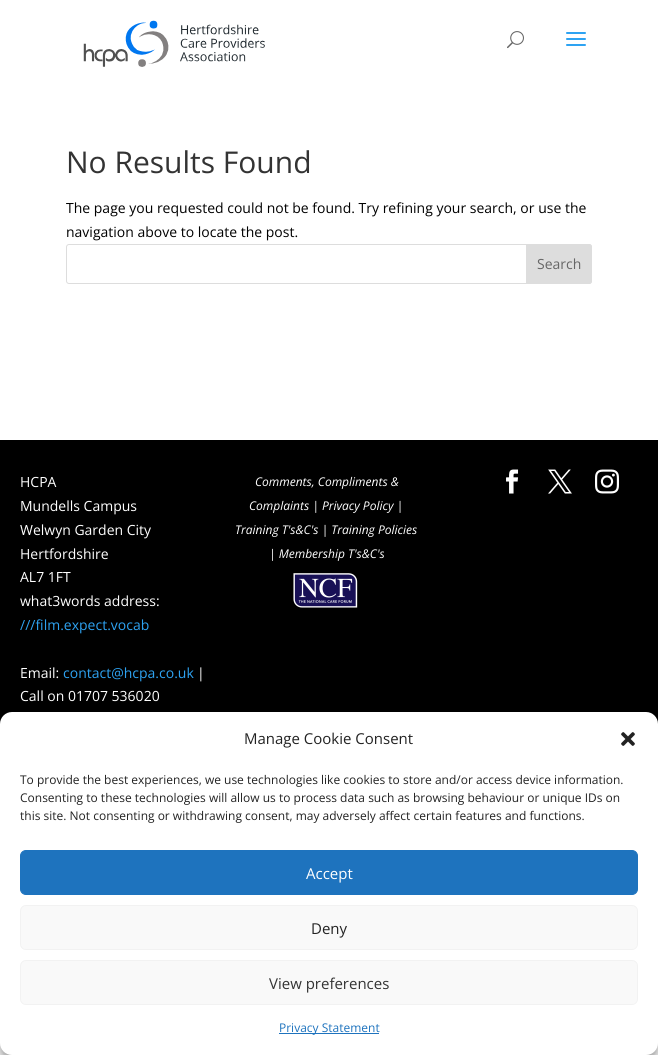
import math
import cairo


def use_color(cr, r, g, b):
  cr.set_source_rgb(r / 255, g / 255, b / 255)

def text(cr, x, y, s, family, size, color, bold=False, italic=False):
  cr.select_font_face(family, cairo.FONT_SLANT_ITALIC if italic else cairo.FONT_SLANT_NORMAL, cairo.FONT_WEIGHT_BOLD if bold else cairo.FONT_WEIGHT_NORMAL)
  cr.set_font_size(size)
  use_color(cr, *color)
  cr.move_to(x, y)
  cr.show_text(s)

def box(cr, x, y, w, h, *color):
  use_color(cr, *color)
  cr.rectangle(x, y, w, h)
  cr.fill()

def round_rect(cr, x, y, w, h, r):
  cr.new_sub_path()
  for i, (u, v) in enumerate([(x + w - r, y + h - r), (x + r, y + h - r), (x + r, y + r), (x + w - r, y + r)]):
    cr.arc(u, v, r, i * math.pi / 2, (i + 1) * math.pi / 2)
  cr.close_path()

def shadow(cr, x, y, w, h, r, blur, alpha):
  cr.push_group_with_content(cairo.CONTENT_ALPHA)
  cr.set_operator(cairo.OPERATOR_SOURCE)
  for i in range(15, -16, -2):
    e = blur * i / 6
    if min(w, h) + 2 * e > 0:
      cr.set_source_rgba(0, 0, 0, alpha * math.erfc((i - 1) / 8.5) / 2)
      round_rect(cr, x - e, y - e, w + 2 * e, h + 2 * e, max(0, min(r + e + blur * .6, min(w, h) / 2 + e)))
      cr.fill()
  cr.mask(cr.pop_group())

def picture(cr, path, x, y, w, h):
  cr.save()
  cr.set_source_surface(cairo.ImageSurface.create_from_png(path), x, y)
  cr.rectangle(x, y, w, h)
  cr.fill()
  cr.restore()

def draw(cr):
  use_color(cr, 255, 255, 255)
  cr.paint()
  picture(cr, "img_01.png", 83, 20, 182, 47)
  picture(cr, "img_02.png", 507, 31, 17, 18)
  picture(cr, "img_03.png", 566, 32, 20, 14)
  round_rect(cr, 66.5, 244.5, 525, 39, 2.5)
  use_color(cr, 221, 221, 221)
  cr.set_line_width(1)
  cr.stroke()
  cr.new_path()
  cr.move_to(526.5, 244.5)
  cr.line_to(589, 244.5)
  cr.curve_to(590.5, 244.5, 591.5, 245.5, 591.5, 247)
  cr.line_to(591.5, 281)
  cr.curve_to(591.5, 282.5, 590.5, 283.5, 589, 283.5)
  cr.line_to(526.5, 283.5)
  cr.close_path()
  cr.fill_preserve()
  cr.stroke()
  box(cr, 0, 440, 658, 284, 0, 0, 0)
  picture(cr, "img_04.png", 293, 573, 65, 35)
  picture(cr, "img_05.png", 506, 469, 13, 25)
  picture(cr, "img_06.png", 548, 469, 24, 25)
  picture(cr, "img_07.png", 595, 469, 24, 25)
  use_color(cr, 0, 0, 0)
  shadow(cr, 0, 718, 658, 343, 12, 3, 0.23)
  shadow(cr, 0, 722, 658, 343, 12, 10, 0.19)
  use_color(cr, 255, 255, 255)
  round_rect(cr, 0, 712, 658, 343, 12)
  cr.fill()
  picture(cr, "img_08.png", 621, 732, 14, 14)
  use_color(cr, 30, 115, 190)
  round_rect(cr, 20.5, 850.5, 617, 44, 5.5)
  cr.fill_preserve()
  cr.stroke()
  use_color(cr, 249, 249, 249)
  round_rect(cr, 20.5, 905.5, 617, 44, 5.5)
  cr.fill_preserve()
  use_color(cr, 242, 242, 242)
  cr.stroke()
  use_color(cr, 249, 249, 249)
  round_rect(cr, 20.5, 960.5, 617, 44, 5.5)
  cr.fill_preserve()
  use_color(cr, 242, 242, 242)
  cr.stroke()
  box(cr, 279, 1033, 100, 1, 30, 115, 190)
  text(cr, 66, 173, "No Results Found", "Open Sans", 30, (51, 51, 51))
  text(cr, 66, 213, "The page you requested could not be found. Try refining your search, or use the", "Open Sans", 14, (0, 0, 0))
  text(cr, 66, 237, "navigation above to locate the post.", "Open Sans", 14, (0, 0, 0))
  text(cr, 537, 269, "Search", "Open Sans", 14, (102, 102, 102))
  text(cr, 20, 487, "HCPA", "Open Sans", 14, (255, 255, 255))
  text(cr, 20, 511, "Mundells Campus", "Open Sans", 14, (255, 255, 255))
  text(cr, 20, 535, "Welwyn Garden City", "Open Sans", 14, (255, 255, 255))
  text(cr, 20, 559, "Hertfordshire", "Open Sans", 14, (255, 255, 255))
  text(cr, 20, 582, "AL7 1FT", "Open Sans", 14, (255, 255, 255))
  text(cr, 20, 606, "what3words address:", "Open Sans", 14, (255, 255, 255))
  text(cr, 20, 630, "///film.expect.vocab", "Open Sans", 14, (46, 163, 242))
  text(cr, 20, 678, "Email:", "Open Sans", 14, (255, 255, 255))
  text(cr, 63, 678, "contact@hcpa.co.uk", "Open Sans", 14, (46, 163, 242))
  text(cr, 197, 678, "|", "Open Sans", 14, (255, 255, 255))
  text(cr, 20, 701, "Call on 01707 536020", "Open Sans", 14, (255, 255, 255))
  text(cr, 255, 486, "Comments, Compliments &", "Open Sans", 12, (255, 255, 255), italic=True)
  text(cr, 249, 510, "Complaints | Privacy Policy |", "Open Sans", 12, (255, 255, 255), italic=True)
  text(cr, 235, 534, "Training T's&C's | Training Policies", "Open Sans", 12, (255, 255, 255), italic=True)
  text(cr, 269, 558, "| Membership T's&C's", "Open Sans", 12, (255, 255, 255), italic=True)
  text(cr, 244, 744, "Manage Cookie Consent", "Open Sans", 15, (34, 34, 34))
  text(cr, 20, 784, "To provide the best experiences, we use technologies like cookies to store and/or access device information.", "Open Sans", 12, (34, 34, 34))
  text(cr, 20, 802, "Consenting to these technologies will allow us to process data such as browsing behaviour or unique IDs on", "Open Sans", 12, (34, 34, 34))
  text(cr, 20, 820, "this site. Not consenting or withdrawing consent, may adversely affect certain features and functions.", "Open Sans", 12, (34, 34, 34))
  text(cr, 306, 879, "Accept", "Open Sans", 15, (255, 255, 255))
  text(cr, 311, 934, "Deny", "Open Sans", 15, (34, 34, 34))
  text(cr, 269, 989, "View preferences", "Open Sans", 15, (51, 51, 51))
  text(cr, 279, 1032, "Privacy Statement", "Open Sans", 12, (30, 115, 190))


surface = cairo.ImageSurface(cairo.FORMAT_RGB24, 658, 1055)
cr = cairo.Context(surface)
options = cairo.FontOptions()
options.set_hint_metrics(cairo.HINT_METRICS_OFF)
options.set_hint_style(cairo.HINT_STYLE_NONE)
cr.set_font_options(options)
cr.set_miter_limit(4)
draw(cr)
surface.write_to_png("out.png")
